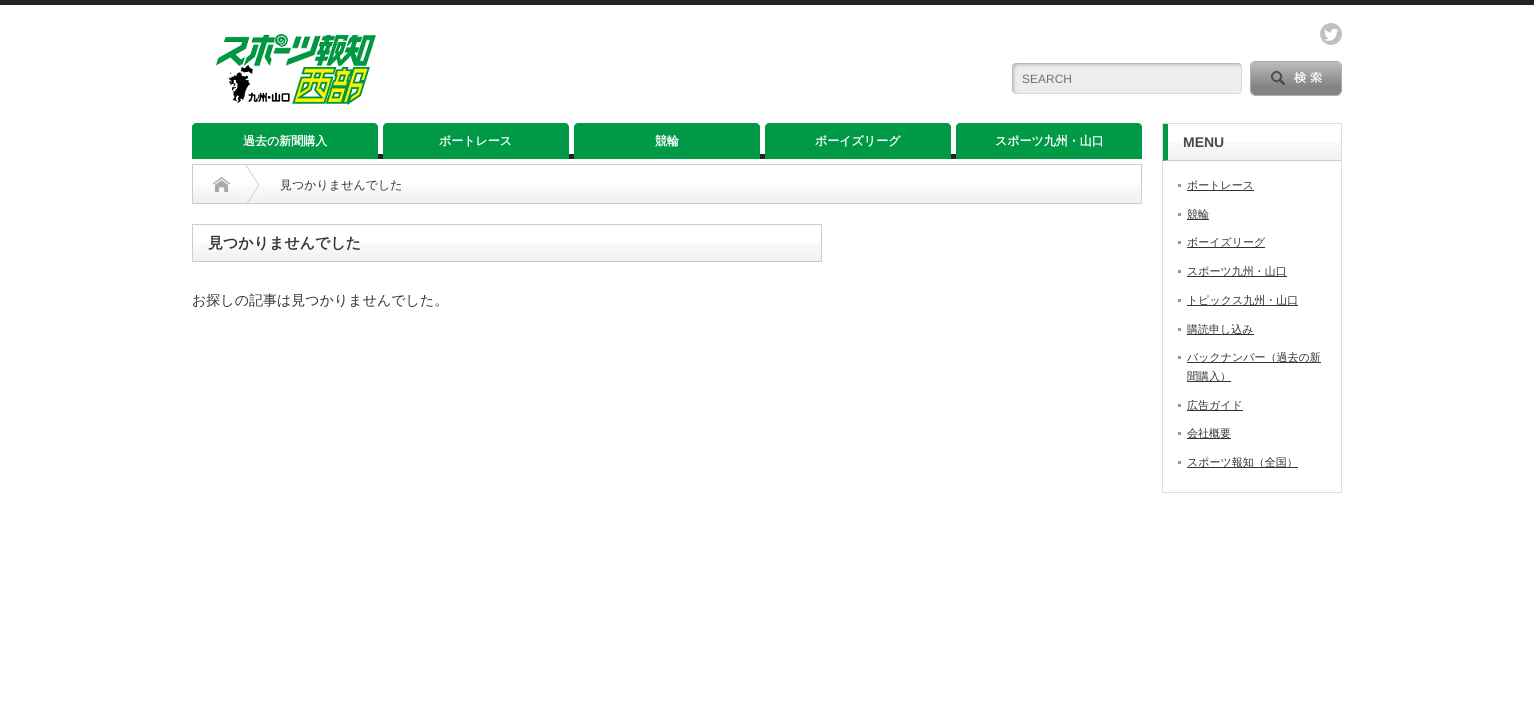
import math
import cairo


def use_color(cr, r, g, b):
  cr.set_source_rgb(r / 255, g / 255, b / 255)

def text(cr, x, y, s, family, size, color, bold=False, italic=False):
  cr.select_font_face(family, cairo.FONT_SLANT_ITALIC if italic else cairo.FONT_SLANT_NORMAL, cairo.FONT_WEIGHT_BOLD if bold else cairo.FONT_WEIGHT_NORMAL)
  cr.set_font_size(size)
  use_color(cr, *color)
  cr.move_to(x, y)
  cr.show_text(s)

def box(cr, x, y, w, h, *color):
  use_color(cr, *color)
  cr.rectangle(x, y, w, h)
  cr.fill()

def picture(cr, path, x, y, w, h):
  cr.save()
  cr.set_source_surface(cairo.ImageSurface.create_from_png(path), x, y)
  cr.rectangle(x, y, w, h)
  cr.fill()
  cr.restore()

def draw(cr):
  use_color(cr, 255, 255, 255)
  cr.paint()
  box(cr, 0, 0, 1534, 5, 34, 34, 34)
  picture(cr, "img_01.png", 216, 34, 160, 71)
  picture(cr, "img_02.png", 1012, 63, 230, 31)
  picture(cr, "img_03.png", 1250, 61, 92, 35)
  picture(cr, "img_04.png", 1320, 23, 22, 22)
  box(cr, 378, 154, 578, 5, 34, 34, 34)
  use_color(cr, 0, 153, 69)
  cr.new_path()
  cr.move_to(196, 123)
  cr.line_to(374, 123)
  cr.curve_to(376, 123, 378, 125, 378, 127)
  cr.line_to(378, 159)
  cr.line_to(192, 159)
  cr.line_to(192, 127)
  cr.curve_to(192, 125, 194, 123, 196, 123)
  cr.close_path()
  cr.fill()
  cr.new_path()
  cr.move_to(387, 123)
  cr.line_to(565, 123)
  cr.curve_to(567, 123, 569, 125, 569, 127)
  cr.line_to(569, 159)
  cr.line_to(383, 159)
  cr.line_to(383, 127)
  cr.curve_to(383, 125, 385, 123, 387, 123)
  cr.close_path()
  cr.fill()
  cr.new_path()
  cr.move_to(578, 123)
  cr.line_to(756, 123)
  cr.curve_to(758, 123, 760, 125, 760, 127)
  cr.line_to(760, 159)
  cr.line_to(574, 159)
  cr.line_to(574, 127)
  cr.curve_to(574, 125, 576, 123, 578, 123)
  cr.close_path()
  cr.fill()
  cr.new_path()
  cr.move_to(769, 123)
  cr.line_to(947, 123)
  cr.curve_to(949, 123, 951, 125, 951, 127)
  cr.line_to(951, 159)
  cr.line_to(765, 159)
  cr.line_to(765, 127)
  cr.curve_to(765, 125, 767, 123, 769, 123)
  cr.close_path()
  cr.fill()
  cr.new_path()
  cr.move_to(960, 123)
  cr.line_to(1138, 123)
  cr.curve_to(1140, 123, 1142, 125, 1142, 127)
  cr.line_to(1142, 159)
  cr.line_to(956, 159)
  cr.line_to(956, 127)
  cr.curve_to(956, 125, 958, 123, 960, 123)
  cr.close_path()
  cr.fill()
  picture(cr, "img_05.png", 193, 185, 948, 18)
  cr.rectangle(192.5, 164.5, 949, 39)
  use_color(cr, 204, 204, 204)
  cr.set_line_width(1)
  cr.stroke()
  picture(cr, "img_06.png", 245, 165, 15, 38)
  picture(cr, "img_07.png", 213, 177, 17, 15)
  picture(cr, "img_08.png", 193, 243, 628, 18)
  cr.rectangle(192.5, 224.5, 629, 37)
  cr.stroke()
  cr.rectangle(1162.5, 123.5, 179, 369)
  use_color(cr, 221, 221, 221)
  cr.stroke()
  picture(cr, "img_09.png", 1168, 142, 173, 18)
  use_color(cr, 204, 204, 204)
  cr.new_path()
  cr.move_to(1341, 161)
  cr.line_to(1163, 161)
  cr.line_to(1168, 160)
  cr.line_to(1341, 160)
  cr.close_path()
  cr.fill()
  use_color(cr, 0, 153, 69)
  cr.new_path()
  cr.move_to(1163, 161)
  cr.line_to(1163, 124)
  cr.line_to(1168, 124)
  cr.line_to(1168, 160)
  cr.close_path()
  cr.fill()
  box(cr, 1178, 184, 3, 3, 153, 153, 153)
  box(cr, 1187, 190, 67, 1, 51, 51, 51)
  box(cr, 1178, 213, 3, 3, 153, 153, 153)
  box(cr, 1187, 219, 22, 1, 51, 51, 51)
  box(cr, 1178, 241, 3, 3, 153, 153, 153)
  box(cr, 1187, 247, 78, 1, 51, 51, 51)
  box(cr, 1178, 270, 3, 3, 153, 153, 153)
  box(cr, 1187, 276, 100, 1, 51, 51, 51)
  box(cr, 1178, 299, 3, 3, 153, 153, 153)
  box(cr, 1187, 305, 111, 1, 51, 51, 51)
  box(cr, 1178, 328, 3, 3, 153, 153, 153)
  box(cr, 1187, 334, 67, 1, 51, 51, 51)
  box(cr, 1178, 356, 3, 3, 153, 153, 153)
  box(cr, 1187, 362, 134, 1, 51, 51, 51)
  box(cr, 1187, 381, 44, 1, 51, 51, 51)
  box(cr, 1178, 404, 3, 3, 153, 153, 153)
  box(cr, 1187, 410, 56, 1, 51, 51, 51)
  box(cr, 1178, 432, 3, 3, 153, 153, 153)
  box(cr, 1187, 438, 44, 1, 51, 51, 51)
  box(cr, 1178, 461, 3, 3, 153, 153, 153)
  box(cr, 1187, 467, 111, 1, 51, 51, 51)
  text(cr, 1022, 83, "SEARCH", "Liberation Sans", 12, (109, 116, 120))
  text(cr, 243, 145, "過去の新聞購入", "WenQuanYi Zen Hei", 12, (255, 255, 255), bold=True)
  text(cr, 439, 145, "ボートレース", "WenQuanYi Zen Hei", 12, (255, 255, 255), bold=True)
  text(cr, 655, 145, "競輪", "WenQuanYi Zen Hei", 12, (255, 255, 255), bold=True)
  text(cr, 815, 145, "ボーイズリーグ", "WenQuanYi Zen Hei", 12, (255, 255, 255), bold=True)
  text(cr, 995, 145, "スポーツ九州・山口", "WenQuanYi Zen Hei", 12, (255, 255, 255), bold=True)
  text(cr, 280, 189, "見つかりませんでした", "WenQuanYi Zen Hei Medium", 12, (51, 51, 51))
  text(cr, 208, 248, "見つかりませんでした", "WenQuanYi Zen Hei", 15, (51, 51, 51), bold=True)
  text(cr, 192, 305, "お探しの記事は見つかりませんでした。", "WenQuanYi Zen Hei Medium", 14, (51, 51, 51))
  text(cr, 1183, 147, "MENU", "Liberation Sans", 14, (73, 73, 73), bold=True)
  text(cr, 1187, 189, "ボートレース", "WenQuanYi Zen Hei Medium", 11, (51, 51, 51))
  text(cr, 1187, 218, "競輪", "WenQuanYi Zen Hei Medium", 11, (51, 51, 51))
  text(cr, 1187, 246, "ボーイズリーグ", "WenQuanYi Zen Hei Medium", 11, (51, 51, 51))
  text(cr, 1187, 275, "スポーツ九州・山口", "WenQuanYi Zen Hei Medium", 11, (51, 51, 51))
  text(cr, 1187, 304, "トピックス九州・山口", "WenQuanYi Zen Hei Medium", 11, (51, 51, 51))
  text(cr, 1187, 333, "購読申し込み", "WenQuanYi Zen Hei Medium", 11, (51, 51, 51))
  text(cr, 1187, 361, "バックナンバー（過去の新", "WenQuanYi Zen Hei Medium", 11, (51, 51, 51))
  text(cr, 1187, 380, "聞購入）", "WenQuanYi Zen Hei Medium", 11, (51, 51, 51))
  text(cr, 1187, 409, "広告ガイド", "WenQuanYi Zen Hei Medium", 11, (51, 51, 51))
  text(cr, 1187, 437, "会社概要", "WenQuanYi Zen Hei Medium", 11, (51, 51, 51))
  text(cr, 1187, 466, "スポーツ報知（全国）", "WenQuanYi Zen Hei Medium", 11, (51, 51, 51))


surface = cairo.ImageSurface(cairo.FORMAT_RGB24, 1534, 722)
cr = cairo.Context(surface)
options = cairo.FontOptions()
options.set_hint_metrics(cairo.HINT_METRICS_OFF)
options.set_hint_style(cairo.HINT_STYLE_NONE)
cr.set_font_options(options)
cr.set_miter_limit(4)
draw(cr)
surface.write_to_png("out.png")
